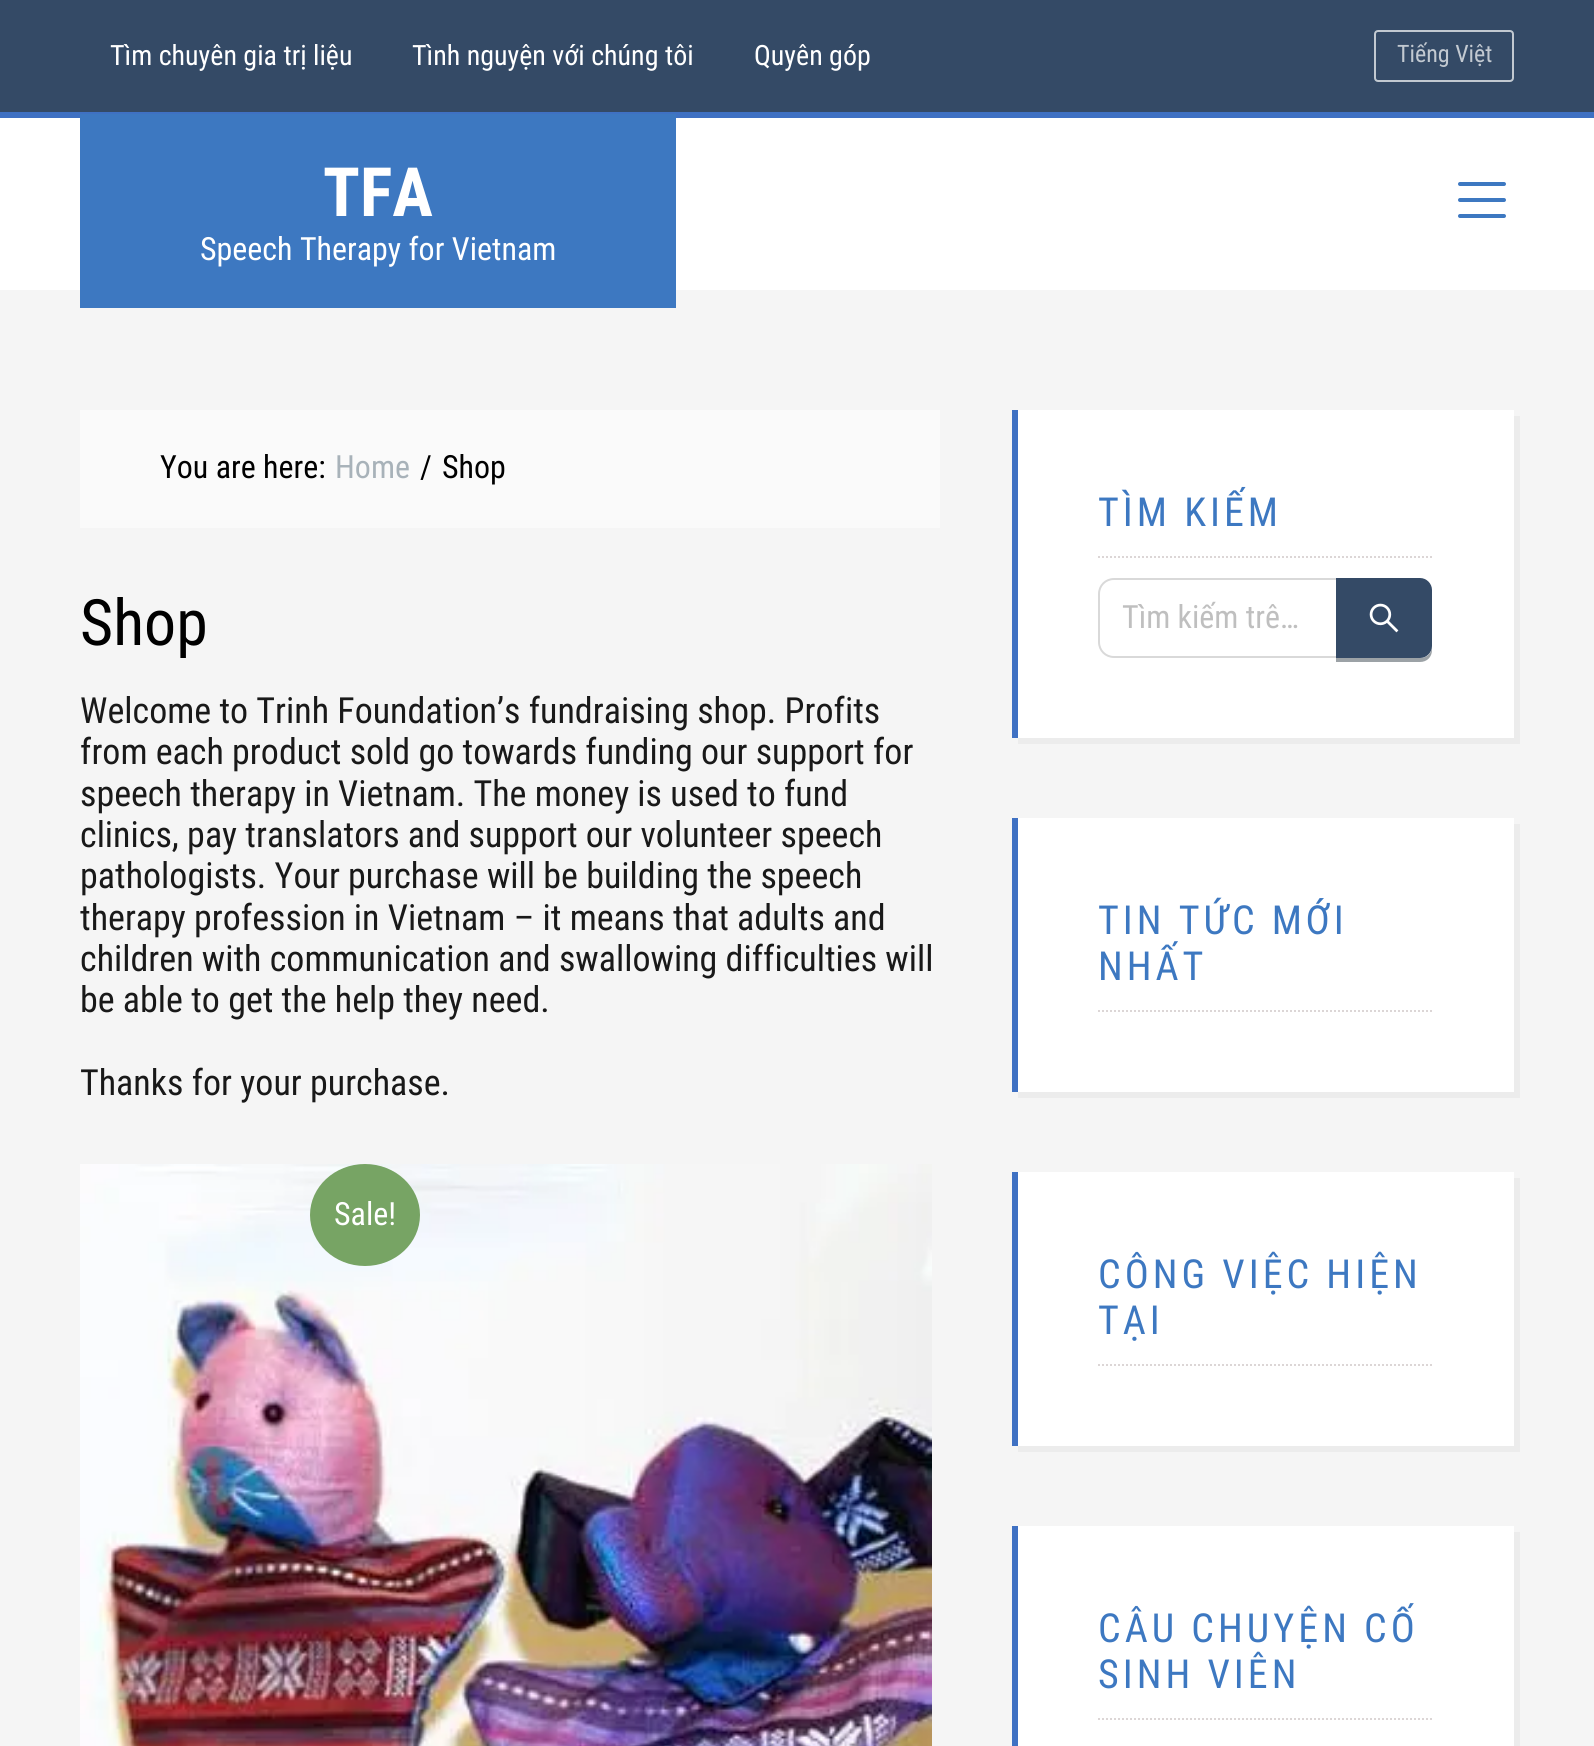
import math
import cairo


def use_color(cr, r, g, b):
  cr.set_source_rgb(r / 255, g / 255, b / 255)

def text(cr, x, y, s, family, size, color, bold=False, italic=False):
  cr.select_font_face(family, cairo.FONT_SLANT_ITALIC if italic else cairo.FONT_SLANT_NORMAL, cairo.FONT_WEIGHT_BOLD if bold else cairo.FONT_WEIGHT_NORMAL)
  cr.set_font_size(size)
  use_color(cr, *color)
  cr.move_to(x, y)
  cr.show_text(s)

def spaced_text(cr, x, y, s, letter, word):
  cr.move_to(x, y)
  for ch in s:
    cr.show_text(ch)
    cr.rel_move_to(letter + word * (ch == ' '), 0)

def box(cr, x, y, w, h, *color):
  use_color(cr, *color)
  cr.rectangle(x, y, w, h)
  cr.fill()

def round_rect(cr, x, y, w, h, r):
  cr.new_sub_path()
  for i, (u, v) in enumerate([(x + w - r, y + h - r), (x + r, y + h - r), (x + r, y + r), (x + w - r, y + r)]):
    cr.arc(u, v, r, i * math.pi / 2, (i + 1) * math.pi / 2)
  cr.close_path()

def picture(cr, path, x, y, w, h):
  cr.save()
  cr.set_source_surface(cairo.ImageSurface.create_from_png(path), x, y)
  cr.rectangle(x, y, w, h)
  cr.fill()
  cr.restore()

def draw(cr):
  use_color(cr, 255, 255, 255)
  cr.paint()
  box(cr, 0, 0, 1594, 112, 52, 74, 102)
  round_rect(cr, 1375, 31, 138, 50, 3)
  use_color(cr, 194, 201, 209)
  cr.stroke()
  box(cr, 0, 112, 1594, 6, 63, 113, 195)
  box(cr, 0, 290, 1594, 1456, 245, 245, 245)
  box(cr, 80, 114, 596, 194, 61, 120, 193)
  cr.new_path()
  cr.move_to(1460, 200)
  cr.line_to(1504, 200)
  cr.move_to(1460, 184)
  cr.line_to(1504, 184)
  cr.move_to(1460, 216)
  cr.line_to(1504, 216)
  cr.set_line_width(4)
  cr.set_line_cap(cairo.LINE_CAP_ROUND)
  cr.set_line_join(cairo.LINE_JOIN_ROUND)
  cr.stroke()
  box(cr, 80, 410, 860, 118, 250, 250, 250)
  picture(cr, "img_01.png", 80, 1164, 852, 582)
  use_color(cr, 119, 164, 100)
  cr.new_path()
  cr.move_to(365, 1164)
  cr.curve_to(395.5, 1164, 420, 1187, 420, 1215)
  cr.curve_to(420, 1243, 395.5, 1266, 365, 1266)
  cr.curve_to(334.5, 1266, 310, 1243, 310, 1215)
  cr.curve_to(310, 1187, 334.5, 1164, 365, 1164)
  cr.close_path()
  cr.fill()
  use_color(cr, 236, 236, 236)
  cr.new_path()
  cr.move_to(1018, 738)
  cr.line_to(1018, 744)
  cr.line_to(1520, 744)
  cr.line_to(1520, 416)
  cr.line_to(1514, 416)
  cr.line_to(1514, 738)
  cr.close_path()
  cr.fill()
  box(cr, 1018, 410, 496, 328, 255, 255, 255)
  box(cr, 1012, 410, 6, 328, 63, 113, 195)
  cr.new_path()
  cr.move_to(1098, 557)
  cr.line_to(1434, 557)
  use_color(cr, 220, 214, 214)
  cr.set_line_width(2)
  cr.set_line_cap(cairo.LINE_CAP_BUTT)
  cr.set_line_join(cairo.LINE_JOIN_MITER)
  cr.set_dash([2, 2])
  cr.stroke()
  cr.new_path()
  cr.move_to(1114, 579)
  cr.line_to(1337, 579)
  cr.line_to(1337, 657)
  cr.line_to(1114, 657)
  cr.curve_to(1105.5, 657, 1099, 650.5, 1099, 642)
  cr.line_to(1099, 594)
  cr.curve_to(1099, 585.5, 1105.5, 579, 1114, 579)
  cr.close_path()
  use_color(cr, 217, 217, 217)
  cr.set_dash([])
  cr.stroke()
  use_color(cr, 156, 162, 166)
  cr.new_path()
  cr.move_to(1336, 658)
  cr.line_to(1336, 662)
  cr.line_to(1420, 662)
  cr.curve_to(1427, 662, 1432, 657, 1432, 650)
  cr.line_to(1432, 646)
  cr.curve_to(1432, 653, 1427, 658, 1420, 658)
  cr.close_path()
  cr.fill()
  use_color(cr, 52, 74, 102)
  cr.new_path()
  cr.move_to(1336, 578)
  cr.line_to(1420, 578)
  cr.curve_to(1426.5, 578, 1432, 583.5, 1432, 590)
  cr.line_to(1432, 646)
  cr.curve_to(1432, 652.5, 1426.5, 658, 1420, 658)
  cr.line_to(1336, 658)
  cr.close_path()
  cr.fill()
  picture(cr, "img_02.png", 1369, 603, 30, 30)
  use_color(cr, 236, 236, 236)
  cr.new_path()
  cr.move_to(1018, 1092)
  cr.line_to(1018, 1098)
  cr.line_to(1520, 1098)
  cr.line_to(1520, 824)
  cr.line_to(1514, 824)
  cr.line_to(1514, 1092)
  cr.close_path()
  cr.fill()
  box(cr, 1018, 818, 496, 274, 255, 255, 255)
  box(cr, 1012, 818, 6, 274, 63, 113, 195)
  cr.new_path()
  cr.move_to(1098, 1011)
  cr.line_to(1434, 1011)
  use_color(cr, 220, 214, 214)
  cr.set_dash([2, 2])
  cr.stroke()
  use_color(cr, 236, 236, 236)
  cr.new_path()
  cr.move_to(1018, 1446)
  cr.line_to(1018, 1452)
  cr.line_to(1520, 1452)
  cr.line_to(1520, 1178)
  cr.line_to(1514, 1178)
  cr.line_to(1514, 1446)
  cr.close_path()
  cr.fill()
  box(cr, 1018, 1172, 496, 274, 255, 255, 255)
  box(cr, 1012, 1172, 6, 274, 63, 113, 195)
  cr.new_path()
  cr.move_to(1098, 1365)
  cr.line_to(1434, 1365)
  use_color(cr, 220, 214, 214)
  cr.stroke()
  use_color(cr, 236, 236, 236)
  cr.new_path()
  cr.move_to(1018, 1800)
  cr.line_to(1018, 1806)
  cr.line_to(1520, 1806)
  cr.line_to(1520, 1532)
  cr.line_to(1514, 1532)
  cr.line_to(1514, 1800)
  cr.close_path()
  cr.fill()
  box(cr, 1018, 1526, 496, 220, 255, 255, 255)
  box(cr, 1012, 1526, 6, 220, 63, 113, 195)
  cr.new_path()
  cr.move_to(1098, 1719)
  cr.line_to(1434, 1719)
  use_color(cr, 220, 214, 214)
  cr.stroke()
  text(cr, 110, 65, "Tìm chuyên gia trị liệu", "Roboto Condensed", 28, (255, 255, 255))
  text(cr, 412, 65, "Tình nguyện với chúng tôi", "Roboto Condensed", 28, (255, 255, 255))
  text(cr, 754, 65, "Quyên góp", "Roboto Condensed", 28, (255, 255, 255))
  text(cr, 1397, 62, "Tiếng Việt", "Roboto Condensed", 24, (194, 201, 209))
  text(cr, 323, 216, "TFA", "Roboto Condensed", 68, (255, 255, 255), bold=True)
  text(cr, 200, 260, "Speech Therapy for Vietnam", "Roboto Condensed", 32, (255, 255, 255))
  text(cr, 160, 478, "You are here:", "Roboto Condensed", 32, (0, 0, 0))
  text(cr, 335, 478, "Home", "Roboto Condensed", 32, (168, 178, 185))
  text(cr, 420, 478, "/", "Roboto Condensed", 32, (0, 0, 0))
  text(cr, 442, 478, "Shop", "Roboto Condensed", 32, (0, 0, 0))
  text(cr, 80, 645, "Shop", "Roboto Condensed", 64, (0, 0, 0))
  text(cr, 80, 723, "Welcome to Trinh Foundation’s fundraising shop. Profits", "Roboto Condensed", 36, (25, 25, 25))
  text(cr, 80, 764, "from each product sold go towards funding our support for", "Roboto Condensed", 36, (25, 25, 25))
  text(cr, 80, 806, "speech therapy in Vietnam. The money is used to fund", "Roboto Condensed", 36, (25, 25, 25))
  text(cr, 80, 847, "clinics, pay translators and support our volunteer speech", "Roboto Condensed", 36, (25, 25, 25))
  text(cr, 80, 888, "pathologists. Your purchase will be building the speech", "Roboto Condensed", 36, (25, 25, 25))
  text(cr, 80, 930, "therapy profession in Vietnam – it means that adults and", "Roboto Condensed", 36, (25, 25, 25))
  text(cr, 80, 971, "children with communication and swallowing difficulties will", "Roboto Condensed", 36, (25, 25, 25))
  text(cr, 80, 1012, "be able to get the help they need.", "Roboto Condensed", 36, (25, 25, 25))
  text(cr, 80, 1095, "Thanks for your purchase.", "Roboto Condensed", 36, (25, 25, 25))
  text(cr, 334, 1225, "Sale!", "Roboto Condensed", 32, (255, 255, 255))
  cr.set_font_size(40)
  use_color(cr, 61, 120, 193)
  spaced_text(cr, 1098, 526, "TÌM KIẾM", 4, 0)
  text(cr, 1122, 628, "Tìm kiếm trê…", "Roboto Condensed", 32, (191, 191, 191))
  cr.set_font_size(40)
  use_color(cr, 61, 120, 193)
  spaced_text(cr, 1098, 934, "TIN TỨC MỚI", 4, 0)
  spaced_text(cr, 1098, 980, "NHẤT", 4, 0)
  spaced_text(cr, 1098, 1288, "CÔNG VIỆC HIỆN", 4, 0)
  spaced_text(cr, 1098, 1334, "TẠI", 4, 0)
  spaced_text(cr, 1098, 1642, "CÂU CHUYỆN CỐ", 4, 0)
  spaced_text(cr, 1098, 1688, "SINH VIÊN", 4, 0)


surface = cairo.ImageSurface(cairo.FORMAT_RGB24, 1594, 1746)
cr = cairo.Context(surface)
options = cairo.FontOptions()
options.set_hint_metrics(cairo.HINT_METRICS_OFF)
options.set_hint_style(cairo.HINT_STYLE_NONE)
cr.set_font_options(options)
cr.set_miter_limit(4)
draw(cr)
surface.write_to_png("out.png")
